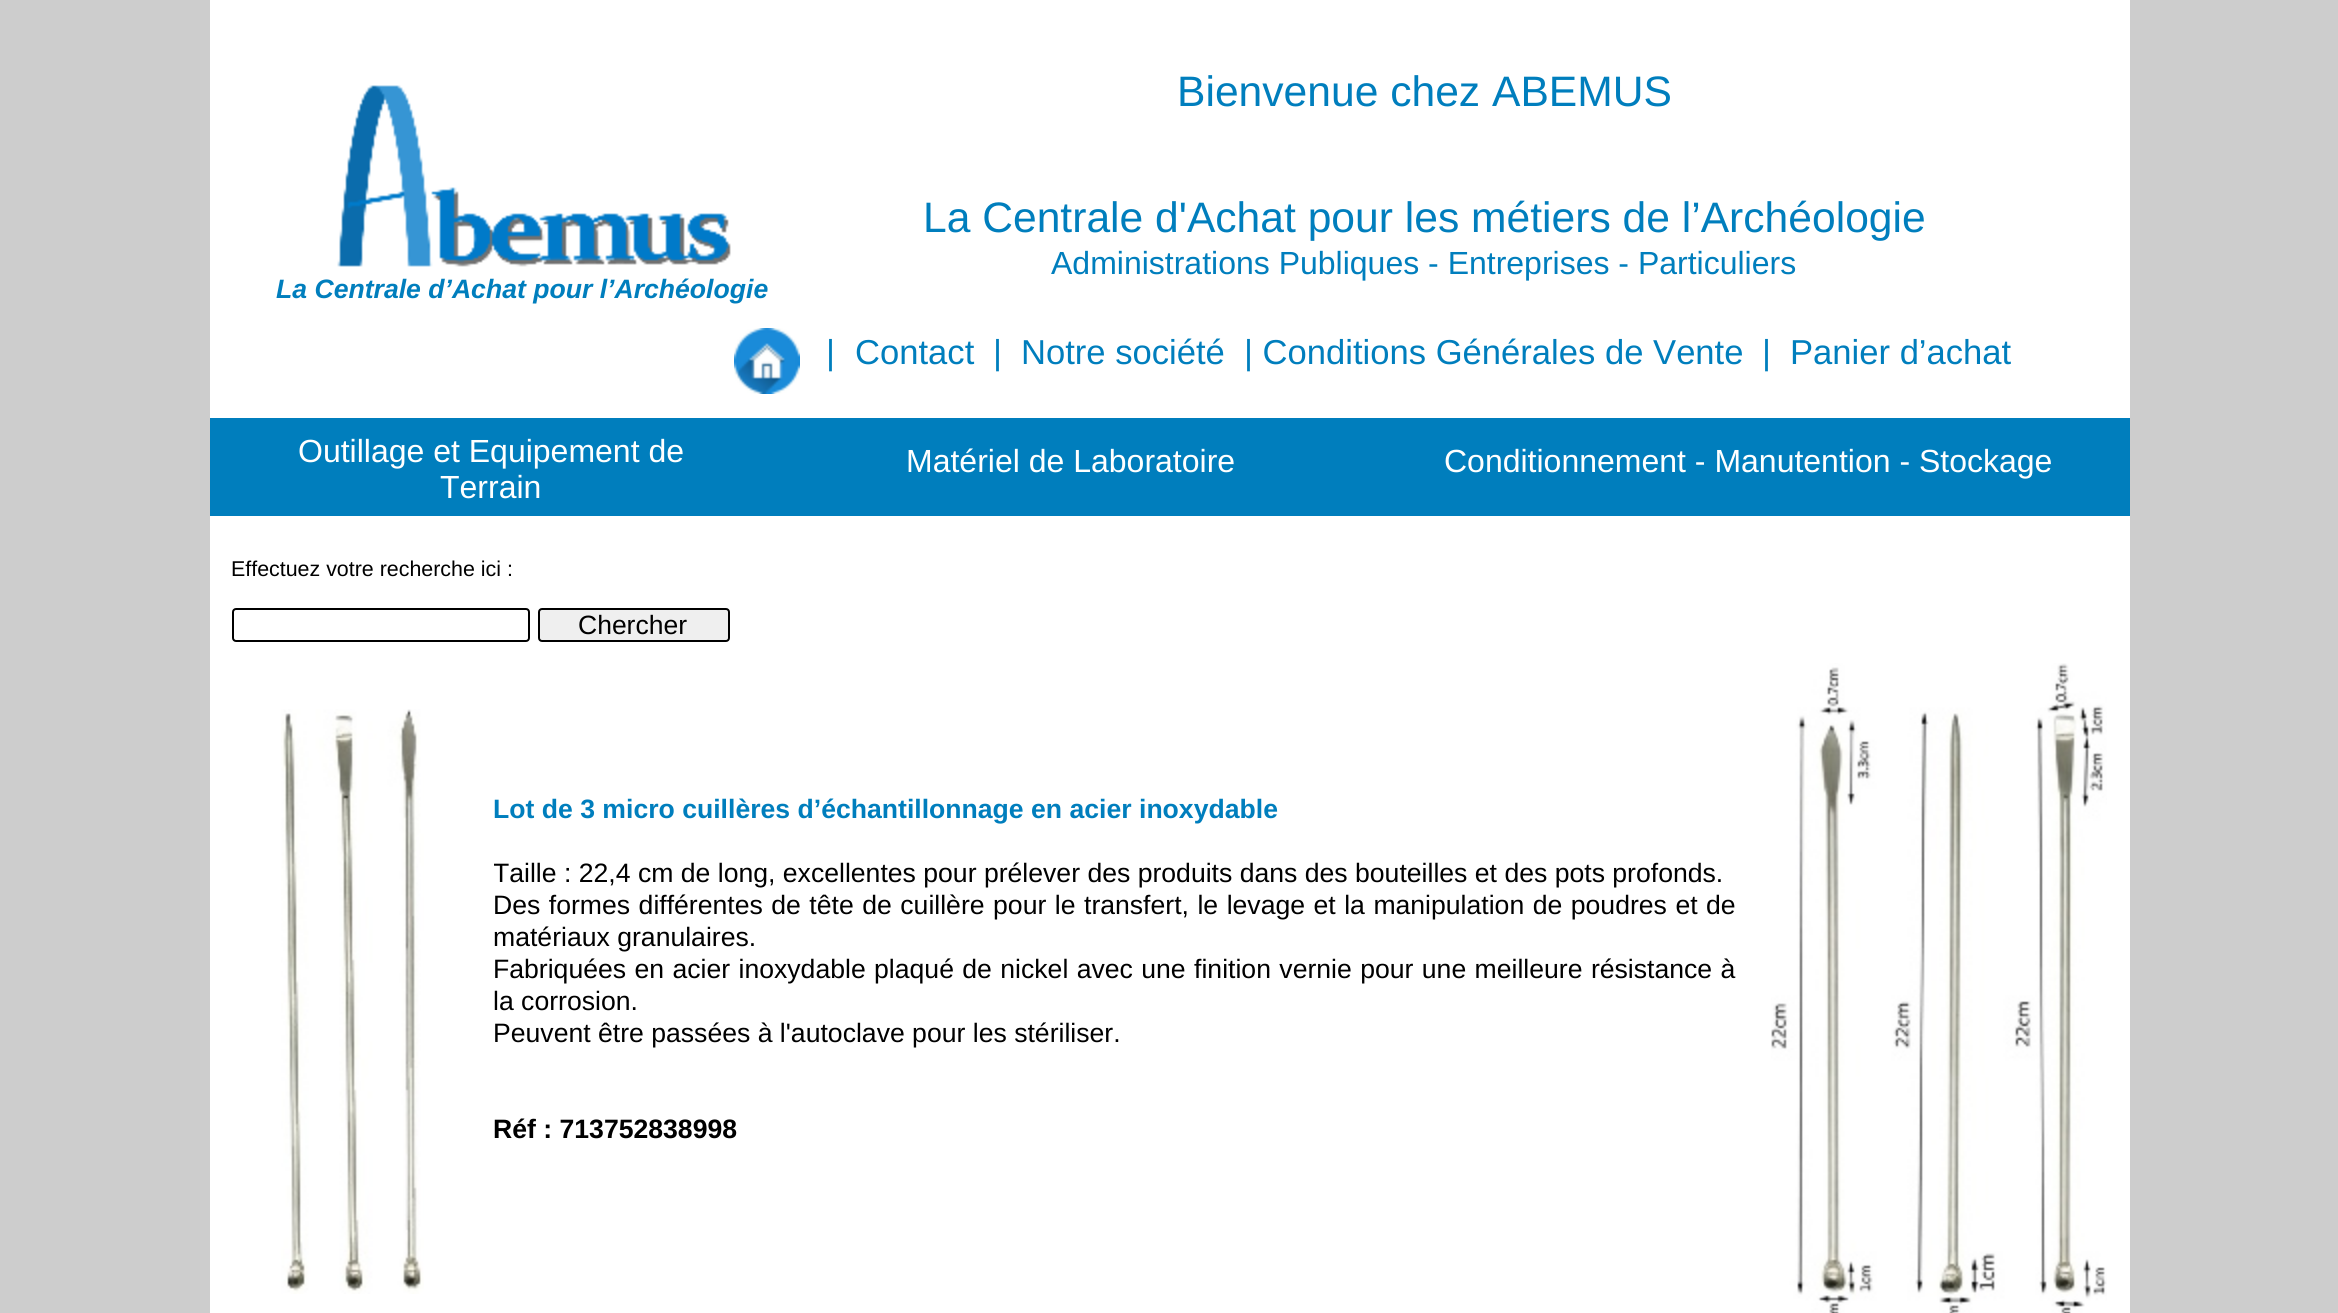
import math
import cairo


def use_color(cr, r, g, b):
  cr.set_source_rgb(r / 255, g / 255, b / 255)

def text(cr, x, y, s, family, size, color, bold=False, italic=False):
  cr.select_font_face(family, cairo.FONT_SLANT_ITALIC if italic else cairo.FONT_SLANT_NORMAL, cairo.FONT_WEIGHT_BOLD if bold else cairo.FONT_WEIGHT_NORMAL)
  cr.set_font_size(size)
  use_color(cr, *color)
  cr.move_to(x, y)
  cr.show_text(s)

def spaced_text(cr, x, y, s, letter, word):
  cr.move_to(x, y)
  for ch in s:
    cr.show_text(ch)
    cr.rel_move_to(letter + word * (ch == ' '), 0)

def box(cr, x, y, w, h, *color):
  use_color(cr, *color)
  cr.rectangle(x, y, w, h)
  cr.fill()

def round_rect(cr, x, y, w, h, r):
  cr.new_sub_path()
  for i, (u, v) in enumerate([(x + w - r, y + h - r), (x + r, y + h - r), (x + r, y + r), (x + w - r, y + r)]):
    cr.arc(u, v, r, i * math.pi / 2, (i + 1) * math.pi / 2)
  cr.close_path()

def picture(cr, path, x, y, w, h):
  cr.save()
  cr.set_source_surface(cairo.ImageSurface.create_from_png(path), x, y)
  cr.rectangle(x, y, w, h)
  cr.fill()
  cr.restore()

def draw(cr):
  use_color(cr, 205, 205, 205)
  cr.paint()
  box(cr, 210, 0, 1920, 1313, 255, 255, 255)
  picture(cr, "img_01.png", 337, 85, 394, 182)
  picture(cr, "img_02.png", 734, 328, 66, 66)
  box(cr, 210, 418, 1920, 98, 0, 126, 189)
  round_rect(cr, 233, 609, 296, 32, 3)
  use_color(cr, 0, 0, 0)
  cr.stroke()
  use_color(cr, 239, 239, 239)
  round_rect(cr, 539, 609, 190, 32, 3)
  cr.fill_preserve()
  use_color(cr, 0, 0, 0)
  cr.stroke()
  picture(cr, "img_03.png", 281, 709, 143, 585)
  picture(cr, "img_04.png", 1771, 663, 336, 650)
  text(cr, 1177, 106, "Bienvenue chez ABEMUS", "Liberation Sans", 42.6, (0, 126, 189))
  text(cr, 923, 232, "La Centrale d'Achat pour les métiers de l’Archéologie", "Liberation Sans", 42.6, (0, 126, 189))
  text(cr, 1051, 274, "Administrations Publiques - Entreprises - Particuliers", "Liberation Sans", 32, (0, 126, 189))
  text(cr, 276, 298, "La Centrale d’Achat pour l’Archéologie", "Liberation Sans", 26.6, (0, 126, 189), bold=True, italic=True)
  text(cr, 826, 364, "|", "Liberation Sans", 34.6, (0, 126, 189))
  text(cr, 855, 364, "Contact", "Liberation Sans", 34.6, (0, 126, 189))
  text(cr, 993, 364, "|", "Liberation Sans", 34.6, (0, 126, 189))
  text(cr, 1021, 364, "Notre société", "Liberation Sans", 34.6, (0, 126, 189))
  text(cr, 1244, 364, "| Conditions Générales de Vente", "Liberation Sans", 34.6, (0, 126, 189))
  text(cr, 1762, 364, "|", "Liberation Sans", 34.6, (0, 126, 189))
  text(cr, 1790, 364, "Panier d’achat", "Liberation Sans", 34.6, (0, 126, 189))
  text(cr, 298, 462, "Outillage et Equipement de", "Liberation Sans", 32, (255, 255, 255))
  text(cr, 440, 498, "Terrain", "Liberation Sans", 32, (255, 255, 255))
  text(cr, 906, 472, "Matériel de Laboratoire", "Liberation Sans", 32, (255, 255, 255))
  text(cr, 1444, 472, "Conditionnement - Manutention - Stockage", "Liberation Sans", 32, (255, 255, 255))
  text(cr, 231, 576, "Effectuez votre recherche ici :", "Liberation Sans", 21.4, (0, 0, 0))
  text(cr, 578, 634, "Chercher", "Liberation Sans", 26.5, (0, 0, 0))
  text(cr, 493, 818, "Lot de 3 micro cuillères d’échantillonnage en acier inoxydable", "Liberation Sans", 26.6, (0, 126, 189), bold=True)
  cr.save()
  cr.rectangle(494, 794, 1242, 440)
  cr.clip()
  text(cr, 493, 882, "Taille : 22,4 cm de long, excellentes pour prélever des produits dans des bouteilles et des pots profonds.", "Liberation Sans", 26.6, (0, 0, 0))
  cr.restore()
  cr.select_font_face("Liberation Sans")
  use_color(cr, 0, 0, 0)
  spaced_text(cr, 493, 914, "Des formes différentes de tête de cuillère pour le transfert, le levage et la manipulation de poudres et de", 0, 1.1)
  text(cr, 493, 946, "matériaux granulaires.", "Liberation Sans", 26.6, (0, 0, 0))
  spaced_text(cr, 493, 978, "Fabriquées en acier inoxydable plaqué de nickel avec une finition vernie pour une meilleure résistance à", 0, 1)
  text(cr, 493, 1010, "la corrosion.", "Liberation Sans", 26.6, (0, 0, 0))
  text(cr, 493, 1042, "Peuvent être passées à l'autoclave pour les stériliser.", "Liberation Sans", 26.6, (0, 0, 0))
  text(cr, 493, 1138, "Réf : 713752838998", "Liberation Sans", 26.6, (0, 0, 0), bold=True)


surface = cairo.ImageSurface(cairo.FORMAT_RGB24, 2338, 1313)
cr = cairo.Context(surface)
options = cairo.FontOptions()
options.set_hint_metrics(cairo.HINT_METRICS_OFF)
options.set_hint_style(cairo.HINT_STYLE_NONE)
cr.set_font_options(options)
cr.set_miter_limit(4)
draw(cr)
surface.write_to_png("out.png")
